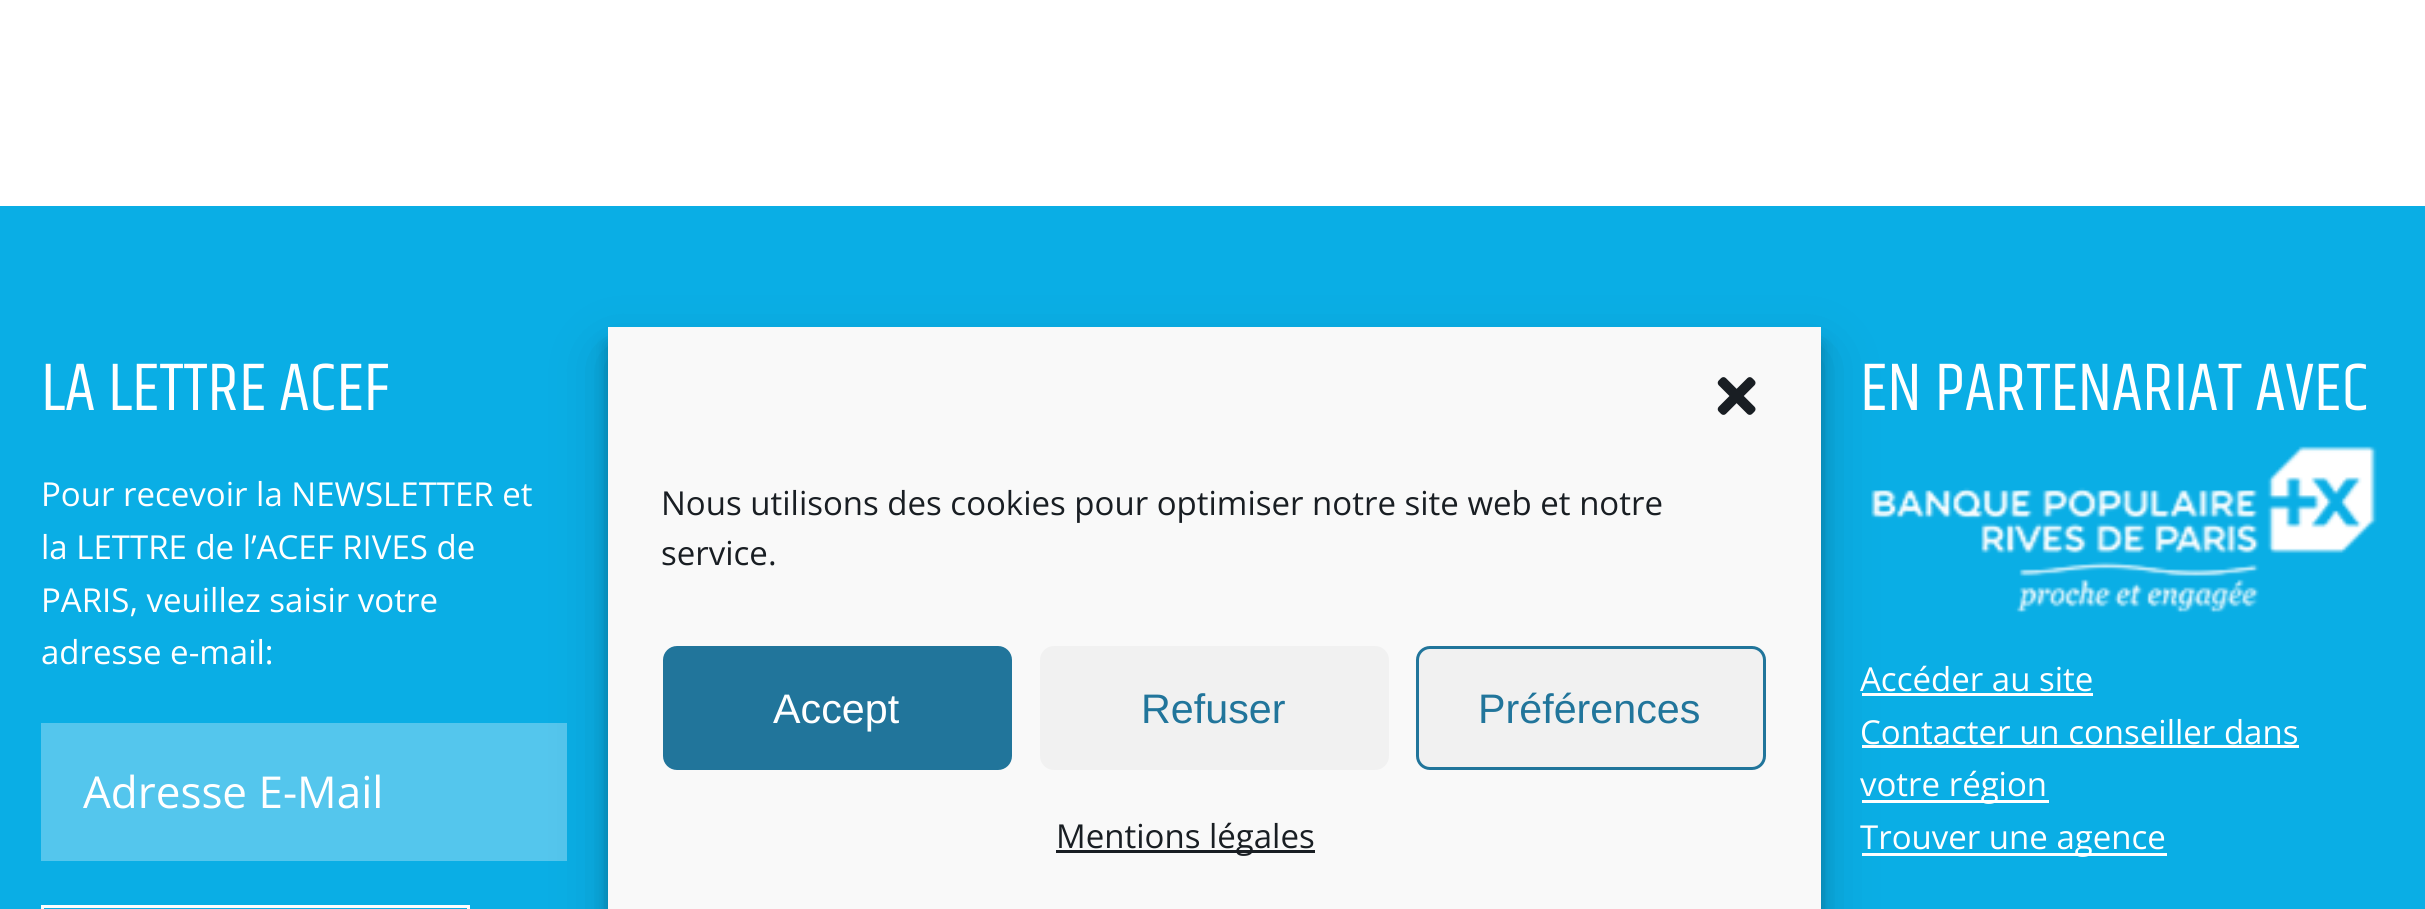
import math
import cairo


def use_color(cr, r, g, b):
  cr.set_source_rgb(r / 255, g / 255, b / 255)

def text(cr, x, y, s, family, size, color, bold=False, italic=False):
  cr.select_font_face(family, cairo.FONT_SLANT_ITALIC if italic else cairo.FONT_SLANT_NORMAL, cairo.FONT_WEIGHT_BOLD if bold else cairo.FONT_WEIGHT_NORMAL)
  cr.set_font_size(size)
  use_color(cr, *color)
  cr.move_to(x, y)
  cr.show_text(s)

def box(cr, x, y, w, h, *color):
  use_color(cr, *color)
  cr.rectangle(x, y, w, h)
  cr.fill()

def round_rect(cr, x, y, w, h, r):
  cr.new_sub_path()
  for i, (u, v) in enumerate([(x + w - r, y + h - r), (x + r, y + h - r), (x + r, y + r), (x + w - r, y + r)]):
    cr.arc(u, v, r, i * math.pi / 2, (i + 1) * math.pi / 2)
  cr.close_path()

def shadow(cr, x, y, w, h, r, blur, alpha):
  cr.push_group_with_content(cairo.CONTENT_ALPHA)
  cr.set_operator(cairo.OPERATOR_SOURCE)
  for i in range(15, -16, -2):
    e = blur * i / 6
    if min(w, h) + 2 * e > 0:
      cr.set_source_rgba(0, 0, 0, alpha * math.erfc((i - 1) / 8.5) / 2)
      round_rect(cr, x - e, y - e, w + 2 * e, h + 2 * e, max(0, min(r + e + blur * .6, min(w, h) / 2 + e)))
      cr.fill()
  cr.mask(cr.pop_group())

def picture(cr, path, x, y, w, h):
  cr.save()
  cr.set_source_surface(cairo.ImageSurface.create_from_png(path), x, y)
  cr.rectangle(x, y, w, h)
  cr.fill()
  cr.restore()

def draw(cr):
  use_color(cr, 255, 255, 255)
  cr.paint()
  box(cr, 0, 206, 2425, 703, 10, 174, 229)
  box(cr, 41, 723, 526, 138, 84, 198, 237)
  cr.rectangle(42.5, 906.5, 426, 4)
  use_color(cr, 254, 254, 254)
  cr.set_line_width(3)
  cr.stroke()
  picture(cr, "img_01.png", 1871, 446, 506, 168)
  box(cr, 1862, 693, 231, 3, 255, 255, 255)
  box(cr, 1862, 745, 437, 3, 255, 255, 255)
  box(cr, 1862, 800, 187, 3, 255, 255, 255)
  box(cr, 1862, 853, 305, 3, 255, 255, 255)
  use_color(cr, 0, 0, 0)
  shadow(cr, 608, 344, 1213, 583, 0, 8, 0.23)
  shadow(cr, 608, 355, 1213, 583, 0, 27.5, 0.19)
  box(cr, 608, 327, 1213, 582, 249, 249, 249)
  picture(cr, "img_02.png", 1717, 377, 39, 38)
  use_color(cr, 33, 117, 155)
  round_rect(cr, 664.5, 647.5, 346, 121, 12.5)
  cr.fill_preserve()
  cr.stroke()
  use_color(cr, 241, 241, 241)
  round_rect(cr, 1040, 646, 349, 124, 14)
  cr.fill()
  round_rect(cr, 1417.5, 647.5, 347, 121, 12.5)
  cr.fill_preserve()
  use_color(cr, 33, 117, 155)
  cr.stroke()
  box(cr, 1056, 850, 259, 3, 25, 30, 35)
  text(cr, 41, 410, "LA LETTRE ACEF", "Khand", 68.75, (255, 255, 255))
  text(cr, 41, 506, "Pour recevoir la NEWSLETTER et", "Open Sans", 33, (255, 255, 255))
  text(cr, 41, 559, "la LETTRE de l’ACEF RIVES de", "Open Sans", 33, (255, 255, 255))
  text(cr, 41, 612, "PARIS, veuillez saisir votre", "Open Sans", 33, (255, 255, 255))
  text(cr, 41, 664, "adresse e-mail:", "Open Sans", 33, (255, 255, 255))
  text(cr, 83, 808, "Adresse E-Mail", "Open Sans", 44, (255, 255, 255))
  text(cr, 1860, 410, "EN PARTENARIAT AVEC", "Khand", 68.75, (255, 255, 255))
  text(cr, 1860, 691, "Accéder au site", "Open Sans", 33, (255, 255, 255))
  text(cr, 1860, 744, "Contacter un conseiller dans", "Open Sans", 33, (255, 255, 255))
  text(cr, 1860, 796, "votre région", "Open Sans", 33, (255, 255, 255))
  text(cr, 1860, 849, "Trouver une agence", "Open Sans", 33, (255, 255, 255))
  text(cr, 661, 515, "Nous utilisons des cookies pour optimiser notre site web et notre", "Open Sans", 33, (25, 30, 35))
  text(cr, 661, 565, "service.", "Open Sans", 33, (25, 30, 35))
  text(cr, 773, 723, "Accept", "Liberation Sans", 41.25, (255, 255, 255))
  text(cr, 1141, 723, "Refuser", "Liberation Sans", 41.25, (33, 117, 155))
  text(cr, 1478, 723, "Préférences", "Liberation Sans", 41.25, (33, 117, 155))
  text(cr, 1056, 848, "Mentions légales", "Open Sans", 33, (25, 30, 35))


surface = cairo.ImageSurface(cairo.FORMAT_RGB24, 2425, 909)
cr = cairo.Context(surface)
options = cairo.FontOptions()
options.set_hint_metrics(cairo.HINT_METRICS_OFF)
options.set_hint_style(cairo.HINT_STYLE_NONE)
cr.set_font_options(options)
cr.set_miter_limit(4)
draw(cr)
surface.write_to_png("out.png")
